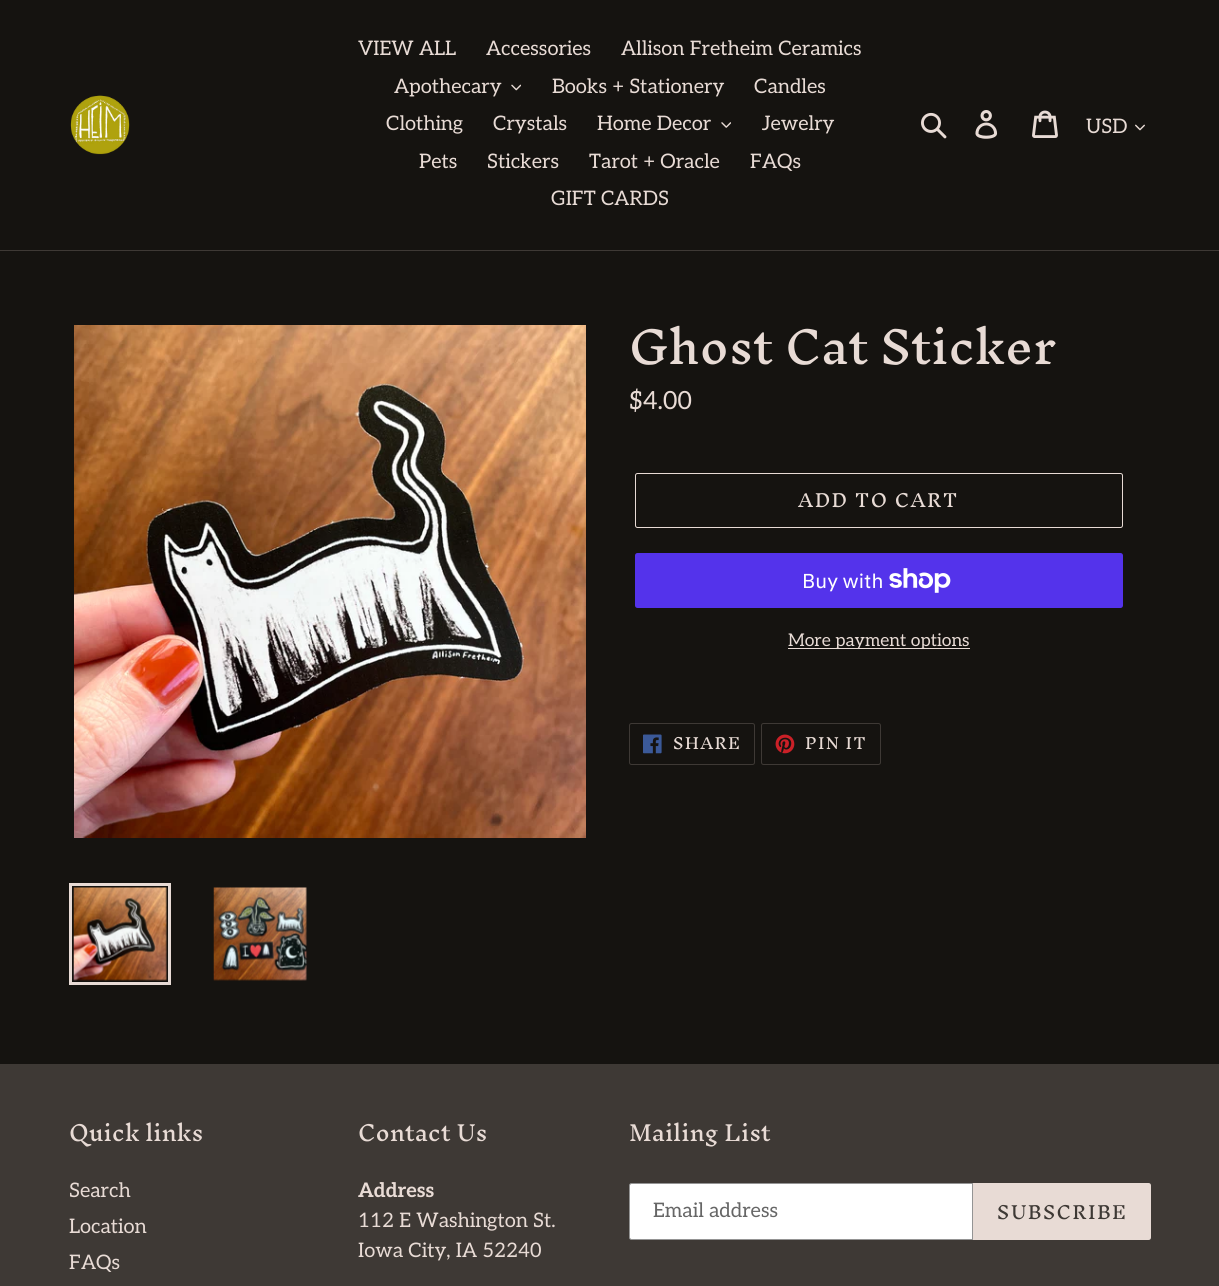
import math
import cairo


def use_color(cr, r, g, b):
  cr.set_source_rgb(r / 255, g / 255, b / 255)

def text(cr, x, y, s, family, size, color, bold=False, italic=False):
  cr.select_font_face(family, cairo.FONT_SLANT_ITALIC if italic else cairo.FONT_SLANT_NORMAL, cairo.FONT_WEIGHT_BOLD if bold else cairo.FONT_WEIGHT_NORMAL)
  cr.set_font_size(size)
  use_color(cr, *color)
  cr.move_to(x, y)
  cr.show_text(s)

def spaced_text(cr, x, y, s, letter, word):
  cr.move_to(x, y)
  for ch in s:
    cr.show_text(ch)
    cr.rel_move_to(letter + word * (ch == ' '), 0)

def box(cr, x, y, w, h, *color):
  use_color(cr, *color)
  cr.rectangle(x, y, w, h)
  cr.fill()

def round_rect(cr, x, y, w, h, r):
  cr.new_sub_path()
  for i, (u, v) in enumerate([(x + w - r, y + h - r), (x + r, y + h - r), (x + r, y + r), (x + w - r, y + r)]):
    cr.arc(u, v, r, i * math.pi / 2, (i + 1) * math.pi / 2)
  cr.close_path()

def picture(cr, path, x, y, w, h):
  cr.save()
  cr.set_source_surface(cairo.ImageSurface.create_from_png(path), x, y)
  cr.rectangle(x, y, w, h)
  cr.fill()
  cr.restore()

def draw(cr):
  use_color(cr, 21, 19, 16)
  cr.paint()
  box(cr, 0, 250, 1219, 1, 62, 57, 53)
  picture(cr, "img_01.png", 70, 95, 60, 60)
  picture(cr, "img_02.png", 511, 84, 10, 7)
  picture(cr, "img_03.png", 721, 122, 10, 6)
  picture(cr, "img_04.png", 921, 112, 26, 27)
  picture(cr, "img_05.png", 975, 110, 23, 29)
  picture(cr, "img_06.png", 1032, 110, 26, 28)
  picture(cr, "img_07.png", 1135, 124, 10, 7)
  picture(cr, "img_08.png", 74, 325, 512, 513)
  cr.rectangle(70.5, 884.5, 99, 99)
  use_color(cr, 232, 219, 213)
  cr.set_line_width(3)
  cr.stroke()
  picture(cr, "img_09.png", 73, 887, 94, 94)
  picture(cr, "img_10.png", 213, 887, 94, 94)
  round_rect(cr, 635.5, 473.5, 487, 54, 2)
  cr.set_line_width(1)
  cr.stroke()
  use_color(cr, 84, 51, 235)
  round_rect(cr, 635, 553, 488, 55, 2.5)
  cr.fill()
  picture(cr, "img_11.png", 889, 568, 62, 25)
  box(cr, 788, 648, 182, 1, 232, 219, 213)
  round_rect(cr, 629.5, 723.5, 125, 41, 2)
  use_color(cr, 62, 57, 53)
  cr.stroke()
  picture(cr, "img_12.png", 643, 734, 19, 20)
  round_rect(cr, 761.5, 723.5, 119, 41, 2)
  cr.stroke()
  picture(cr, "img_13.png", 775, 734, 20, 20)
  box(cr, 0, 1064, 1219, 222, 62, 57, 53)
  use_color(cr, 255, 255, 255)
  cr.new_path()
  cr.move_to(631.5, 1183.5)
  cr.line_to(972.5, 1183.5)
  cr.line_to(972.5, 1239.5)
  cr.line_to(631.5, 1239.5)
  cr.curve_to(630.5, 1239.5, 629.5, 1238.5, 629.5, 1237.5)
  cr.line_to(629.5, 1185.5)
  cr.curve_to(629.5, 1184.5, 630.5, 1183.5, 631.5, 1183.5)
  cr.close_path()
  cr.fill_preserve()
  use_color(cr, 148, 148, 148)
  cr.stroke()
  use_color(cr, 232, 219, 213)
  cr.new_path()
  cr.move_to(973, 1183)
  cr.line_to(1148.5, 1183)
  cr.curve_to(1150, 1183, 1151, 1184, 1151, 1185.5)
  cr.line_to(1151, 1237.5)
  cr.curve_to(1151, 1239, 1150, 1240, 1148.5, 1240)
  cr.line_to(973, 1240)
  cr.close_path()
  cr.fill()
  text(cr, 358, 55, "VIEW ALL", "Aleo", 20, (232, 219, 213))
  text(cr, 486, 55, "Accessories", "Aleo", 20, (232, 219, 213))
  text(cr, 621, 55, "Allison Fretheim Ceramics", "Aleo", 20, (232, 219, 213))
  text(cr, 394, 93, "Apothecary", "Aleo", 20, (232, 219, 213))
  text(cr, 552, 93, "Books + Stationery", "Aleo", 20, (232, 219, 213))
  text(cr, 754, 93, "Candles", "Aleo", 20, (232, 219, 213))
  text(cr, 386, 130, "Clothing", "Aleo", 20, (232, 219, 213))
  text(cr, 493, 130, "Crystals", "Aleo", 20, (232, 219, 213))
  text(cr, 597, 130, "Home Decor", "Aleo", 20, (232, 219, 213))
  text(cr, 762, 130, "Jewelry", "Aleo", 20, (232, 219, 213))
  text(cr, 419, 168, "Pets", "Aleo", 20, (232, 219, 213))
  text(cr, 487, 168, "Stickers", "Aleo", 20, (232, 219, 213))
  text(cr, 589, 168, "Tarot + Oracle", "Aleo", 20, (232, 219, 213))
  text(cr, 750, 168, "FAQs", "Aleo", 20, (232, 219, 213))
  text(cr, 551, 205, "GIFT CARDS", "Aleo", 20, (232, 219, 213))
  text(cr, 1086, 133, "USD", "Aleo", 20, (232, 219, 213))
  text(cr, 629, 364, "Ghost Cat Sticker", "Inknut Antiqua", 43.75, (232, 219, 213))
  text(cr, 629, 409, "$4.00", "Aleo", 25, (232, 219, 213))
  cr.select_font_face("Inknut Antiqua")
  cr.set_font_size(17.5)
  spaced_text(cr, 798, 507, "ADD TO CART", 1.4, 0)
  text(cr, 802, 588, "Buy with", "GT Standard", 20, (255, 255, 255))
  text(cr, 788, 646, "More payment options", "Aleo", 17.5, (232, 219, 213))
  cr.select_font_face("Inknut Antiqua")
  cr.set_font_size(15)
  spaced_text(cr, 673, 749, "SHARE", 1.25, 0)
  spaced_text(cr, 805, 749, "PIN IT", 1.25, 0)
  text(cr, 69, 1141, "Quick links", "Inknut Antiqua", 21.25, (232, 219, 213))
  text(cr, 69, 1197, "Search", "Aleo", 20, (232, 219, 213))
  text(cr, 69, 1233, "Location", "Aleo", 20, (232, 219, 213))
  text(cr, 69, 1269, "FAQs", "Aleo", 20, (232, 219, 213))
  text(cr, 358, 1141, "Contact Us", "Inknut Antiqua", 21.25, (232, 219, 213))
  text(cr, 358, 1197, "Address", "Aleo", 20, (232, 219, 213), bold=True)
  text(cr, 358, 1227, "112 E Washington St.", "Aleo", 20, (232, 219, 213))
  text(cr, 358, 1257, "Iowa City, IA 52240", "Aleo", 20, (232, 219, 213))
  text(cr, 629, 1141, "Mailing List", "Inknut Antiqua", 21.25, (232, 219, 213))
  text(cr, 653, 1217, "Email address", "Aleo", 20, (102, 102, 102))
  cr.select_font_face("Inknut Antiqua")
  cr.set_font_size(17.5)
  use_color(cr, 62, 57, 53)
  spaced_text(cr, 997, 1219, "SUBSCRIBE", 1.4, 0)


surface = cairo.ImageSurface(cairo.FORMAT_RGB24, 1219, 1286)
cr = cairo.Context(surface)
options = cairo.FontOptions()
options.set_hint_metrics(cairo.HINT_METRICS_OFF)
options.set_hint_style(cairo.HINT_STYLE_NONE)
cr.set_font_options(options)
cr.set_miter_limit(4)
draw(cr)
surface.write_to_png("out.png")
